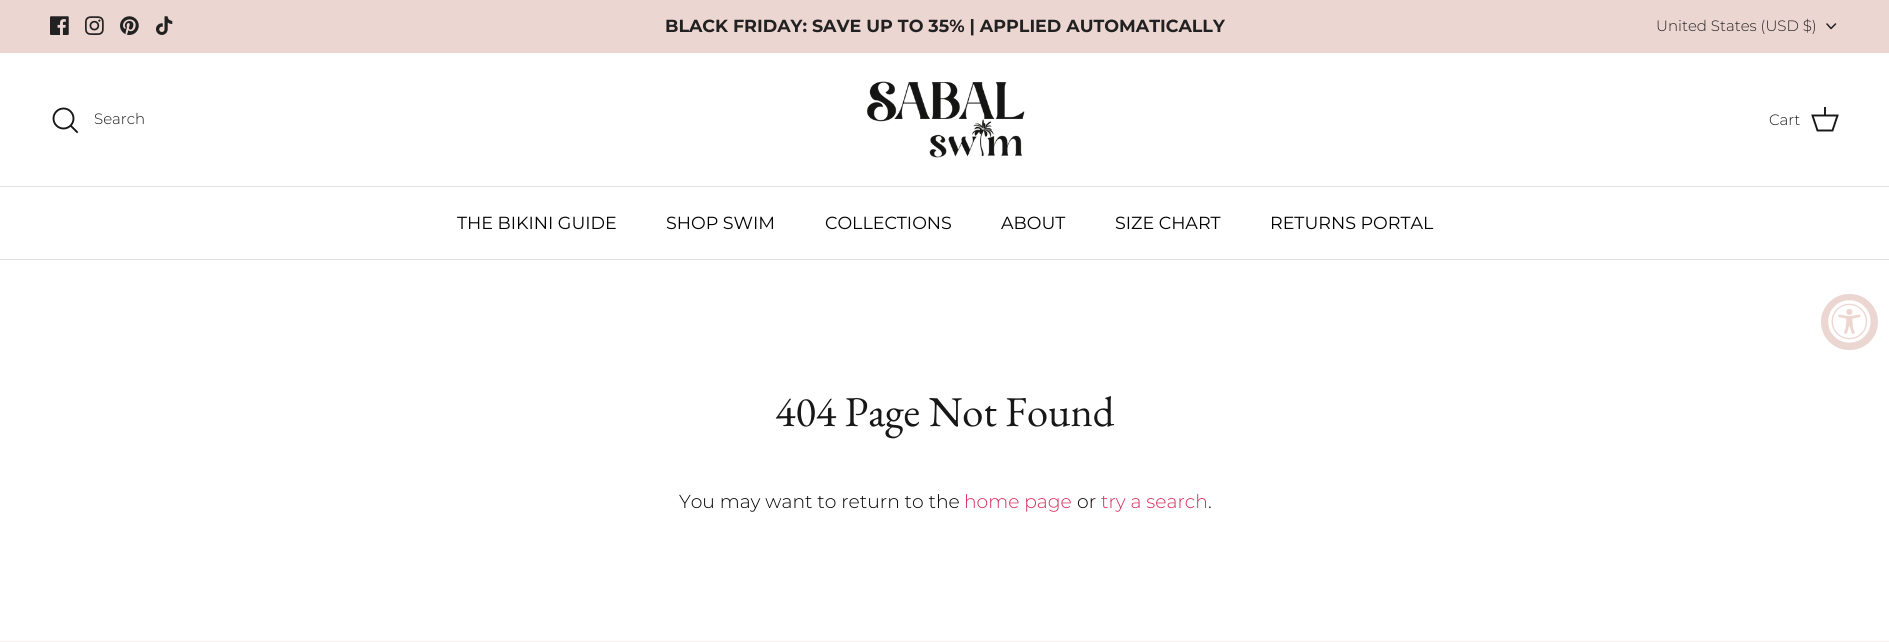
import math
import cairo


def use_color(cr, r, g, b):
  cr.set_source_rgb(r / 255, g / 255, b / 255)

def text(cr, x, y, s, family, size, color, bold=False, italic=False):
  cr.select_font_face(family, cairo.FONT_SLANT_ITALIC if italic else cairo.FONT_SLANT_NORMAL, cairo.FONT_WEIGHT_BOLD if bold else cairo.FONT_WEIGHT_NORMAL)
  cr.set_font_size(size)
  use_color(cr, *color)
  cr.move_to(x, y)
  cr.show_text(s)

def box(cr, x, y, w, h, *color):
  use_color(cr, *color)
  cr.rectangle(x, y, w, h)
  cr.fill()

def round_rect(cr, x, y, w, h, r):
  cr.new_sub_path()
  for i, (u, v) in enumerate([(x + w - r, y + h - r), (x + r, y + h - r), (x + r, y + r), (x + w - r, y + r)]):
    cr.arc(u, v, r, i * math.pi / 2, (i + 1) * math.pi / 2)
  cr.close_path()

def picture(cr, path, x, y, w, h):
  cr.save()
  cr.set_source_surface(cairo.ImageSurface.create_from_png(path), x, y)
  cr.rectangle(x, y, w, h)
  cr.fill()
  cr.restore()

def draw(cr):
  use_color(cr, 255, 255, 255)
  cr.paint()
  box(cr, 0, 0, 1889, 53, 236, 214, 209)
  picture(cr, "img_01.png", 50, 16, 19, 19)
  picture(cr, "img_02.png", 85, 16, 19, 19)
  picture(cr, "img_03.png", 120, 16, 19, 19)
  picture(cr, "img_04.png", 156, 16, 17, 19)
  cr.new_path()
  cr.move_to(1827, 24)
  cr.line_to(1831, 28.5)
  cr.line_to(1835.5, 24)
  use_color(cr, 33, 33, 33)
  cr.set_line_width(1.5)
  cr.set_line_cap(cairo.LINE_CAP_ROUND)
  cr.set_line_join(cairo.LINE_JOIN_ROUND)
  cr.stroke()
  box(cr, 0, 186, 1889, 1, 223, 227, 232)
  cr.arc(63.5, 118.5, 10, 0, 2 * math.pi)
  use_color(cr, 23, 23, 23)
  cr.set_line_width(1.9)
  cr.set_line_cap(cairo.LINE_CAP_BUTT)
  cr.set_line_join(cairo.LINE_JOIN_MITER)
  cr.stroke()
  cr.new_path()
  cr.move_to(71, 126)
  cr.line_to(77, 132)
  cr.set_line_cap(cairo.LINE_CAP_SQUARE)
  cr.stroke()
  picture(cr, "img_05.png", 867, 81, 158, 77)
  cr.new_path()
  cr.move_to(1812.5, 115.5)
  cr.line_to(1837.5, 115.5)
  cr.line_to(1832.5, 130.5)
  cr.line_to(1817.5, 130.5)
  cr.close_path()
  cr.set_line_cap(cairo.LINE_CAP_BUTT)
  cr.stroke()
  cr.set_source_rgba(0.09, 0.09, 0.09, 0.95)
  cr.rectangle(1824, 107, 2, 9)
  cr.fill()
  box(cr, 0, 259, 1889, 1, 223, 227, 232)
  use_color(cr, 236, 214, 209)
  round_rect(cr, 1821, 294, 57, 56, 28)
  cr.fill()
  picture(cr, "img_06.png", 1828, 300, 43, 43)
  box(cr, 0, 641, 1889, 1, 247, 241, 240)
  text(cr, 665, 32, "BLACK FRIDAY: SAVE UP TO 35% | APPLIED AUTOMATICALLY", "Montserrat", 17.5, (33, 33, 33), bold=True)
  text(cr, 1656, 31, "United States (USD $)", "Montserrat Light", 15, (33, 33, 33))
  text(cr, 94, 124, "Search", "Montserrat Light", 15, (23, 23, 23))
  text(cr, 1769, 125, "Cart", "Montserrat Light", 15, (23, 23, 23))
  text(cr, 457, 229, "THE BIKINI GUIDE", "Montserrat", 17.5, (0, 0, 0))
  text(cr, 666, 229, "SHOP SWIM", "Montserrat", 17.5, (0, 0, 0))
  text(cr, 825, 229, "COLLECTIONS", "Montserrat", 17.5, (0, 0, 0))
  text(cr, 1001, 229, "ABOUT", "Montserrat", 17.5, (0, 0, 0))
  text(cr, 1115, 229, "SIZE CHART", "Montserrat", 17.5, (0, 0, 0))
  text(cr, 1270, 229, "RETURNS PORTAL", "Montserrat", 17.5, (0, 0, 0))
  text(cr, 775, 426, "404 Page Not Found", "EB Garamond", 42.5, (23, 23, 23))
  text(cr, 679, 508, "You may want to return to the", "Montserrat Light", 18.75, (0, 0, 0))
  text(cr, 964, 508, "home page", "Montserrat Light", 18.75, (213, 45, 93))
  text(cr, 1077, 508, "or", "Montserrat Light", 18.75, (0, 0, 0))
  text(cr, 1101, 508, "try a search", "Montserrat Light", 18.75, (213, 45, 93))
  text(cr, 1208, 508, ".", "Montserrat Light", 18.75, (0, 0, 0))


surface = cairo.ImageSurface(cairo.FORMAT_RGB24, 1889, 642)
cr = cairo.Context(surface)
options = cairo.FontOptions()
options.set_hint_metrics(cairo.HINT_METRICS_OFF)
options.set_hint_style(cairo.HINT_STYLE_NONE)
cr.set_font_options(options)
cr.set_miter_limit(4)
draw(cr)
surface.write_to_png("out.png")
